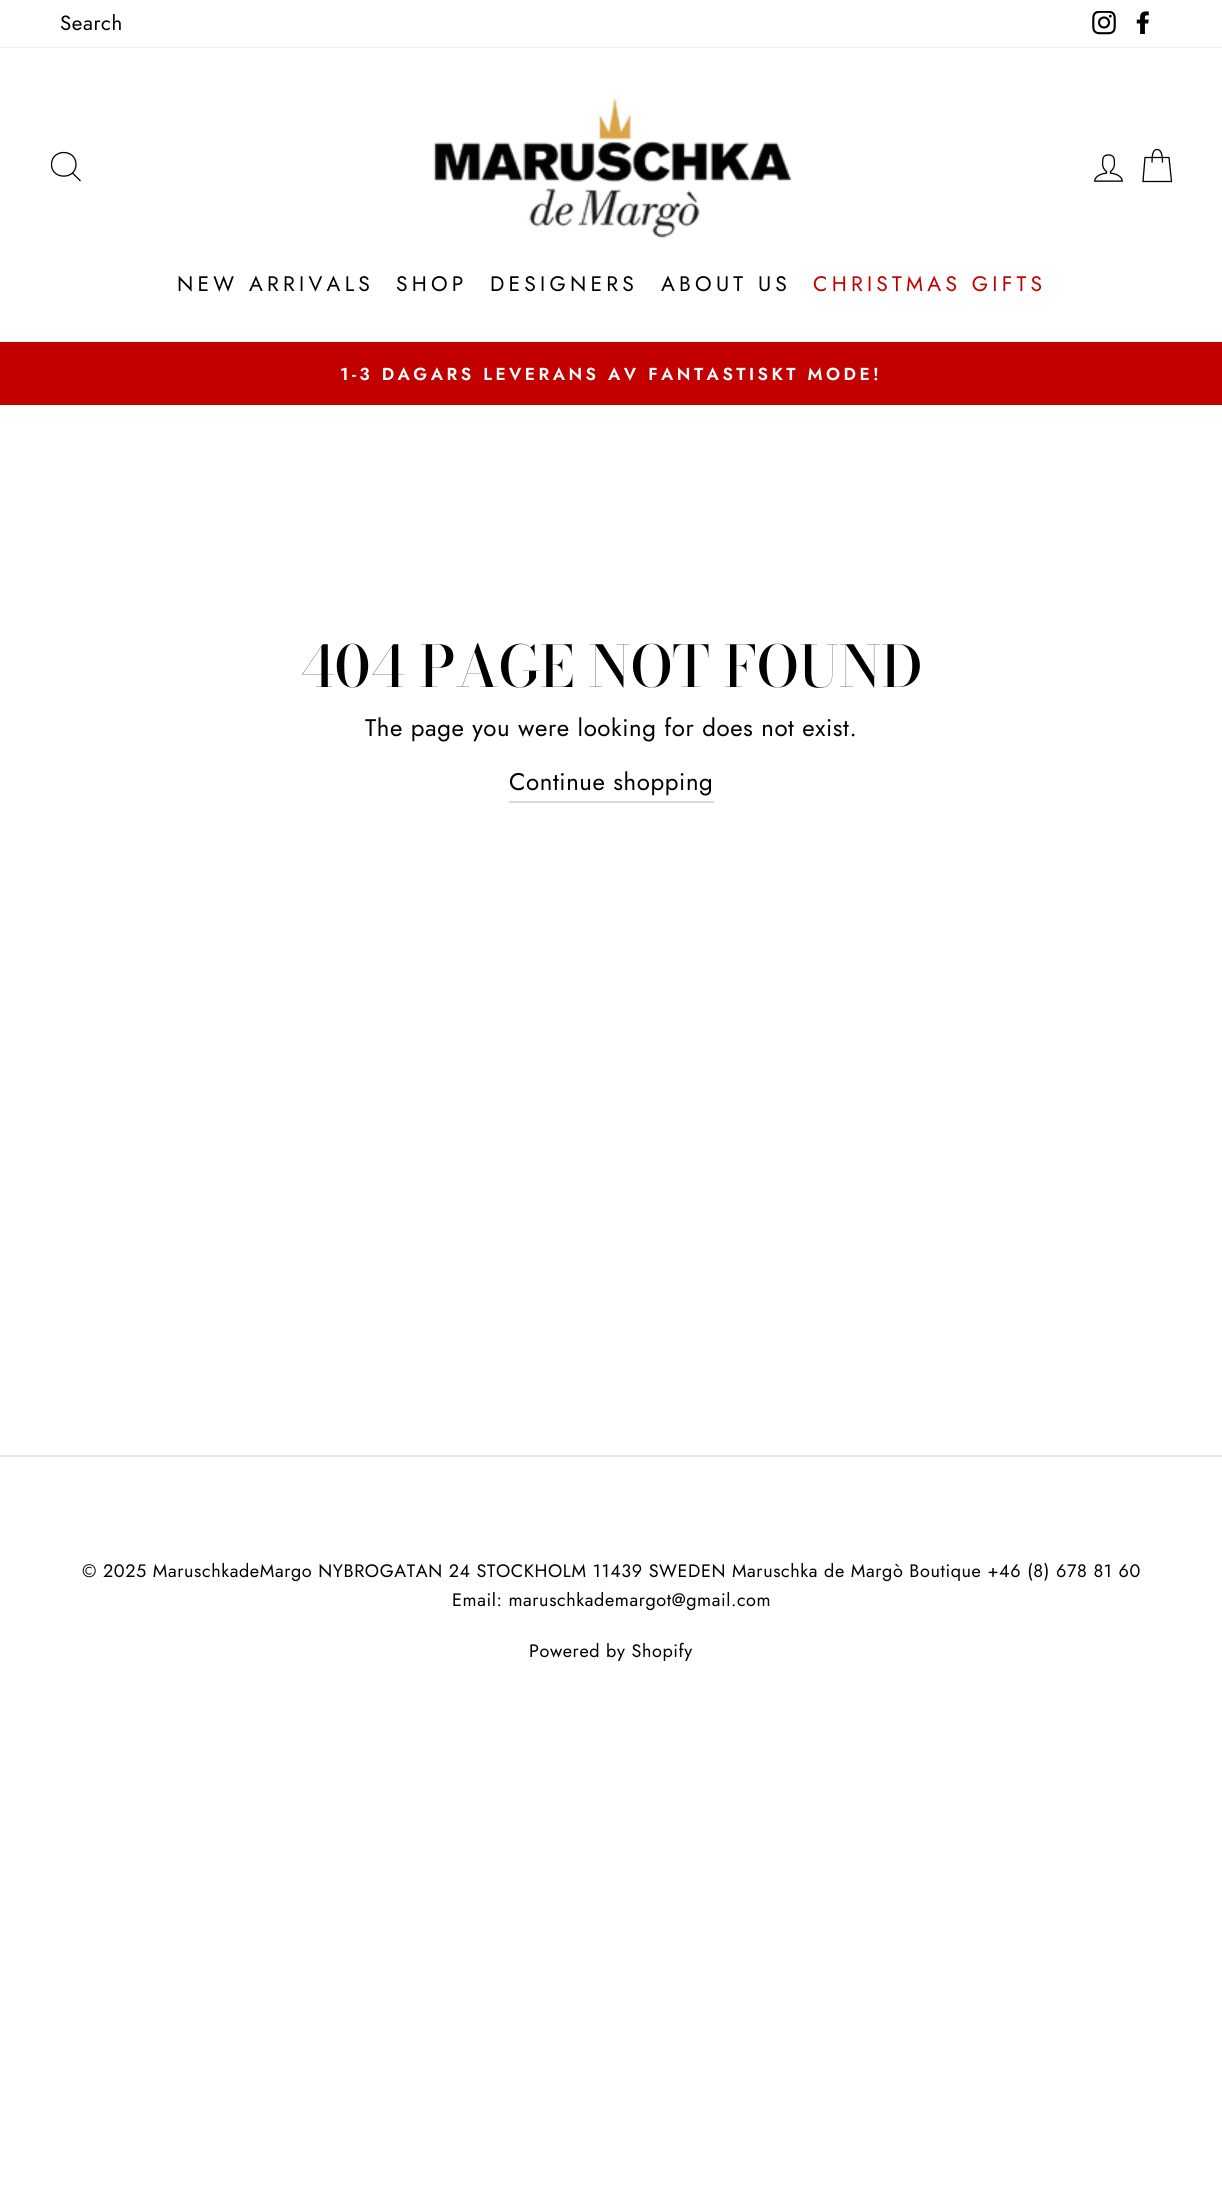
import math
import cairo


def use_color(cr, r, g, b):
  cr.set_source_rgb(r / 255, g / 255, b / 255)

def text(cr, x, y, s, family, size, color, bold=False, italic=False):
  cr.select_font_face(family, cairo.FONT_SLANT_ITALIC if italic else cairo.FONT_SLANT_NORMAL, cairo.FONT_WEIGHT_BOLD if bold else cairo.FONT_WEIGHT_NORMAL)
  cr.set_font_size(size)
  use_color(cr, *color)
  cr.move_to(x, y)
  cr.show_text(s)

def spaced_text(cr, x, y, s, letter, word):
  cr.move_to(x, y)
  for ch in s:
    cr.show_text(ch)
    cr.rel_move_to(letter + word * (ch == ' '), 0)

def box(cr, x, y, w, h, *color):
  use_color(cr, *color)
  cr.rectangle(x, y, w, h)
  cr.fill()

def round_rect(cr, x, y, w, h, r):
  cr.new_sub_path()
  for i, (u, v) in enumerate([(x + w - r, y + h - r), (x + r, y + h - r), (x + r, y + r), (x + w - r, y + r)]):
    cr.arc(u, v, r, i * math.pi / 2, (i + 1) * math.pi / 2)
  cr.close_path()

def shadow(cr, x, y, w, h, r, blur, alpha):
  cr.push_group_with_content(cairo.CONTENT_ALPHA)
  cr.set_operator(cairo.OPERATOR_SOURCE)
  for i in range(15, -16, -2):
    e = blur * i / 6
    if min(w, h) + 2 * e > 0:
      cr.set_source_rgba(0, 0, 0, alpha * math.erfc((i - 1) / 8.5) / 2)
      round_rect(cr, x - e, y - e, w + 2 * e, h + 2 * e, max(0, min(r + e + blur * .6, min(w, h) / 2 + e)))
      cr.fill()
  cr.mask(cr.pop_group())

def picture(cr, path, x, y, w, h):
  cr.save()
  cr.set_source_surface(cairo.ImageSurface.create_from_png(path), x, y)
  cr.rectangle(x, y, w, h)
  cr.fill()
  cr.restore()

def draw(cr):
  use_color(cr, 255, 255, 255)
  cr.paint()
  picture(cr, "img_01.png", 1092, 11, 24, 24)
  picture(cr, "img_02.png", 1136, 11, 13, 23)
  cr.save()
  cr.rectangle(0, 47, 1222, 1)
  cr.clip()
  use_color(cr, 0, 0, 0)
  shadow(cr, 0, 48, 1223, 294, 0, 1, 0.2)
  cr.restore()
  cr.new_path()
  cr.move_to(76, 164.5)
  cr.curve_to(76, 180, 51.5, 180, 51.5, 164.5)
  cr.curve_to(51.5, 148.5, 76, 148.5, 76, 164.5)
  cr.close_path()
  cr.move_to(80.5, 181)
  cr.line_to(72.5, 173)
  use_color(cr, 0, 0, 0)
  cr.set_line_width(1.3)
  cr.stroke()
  picture(cr, "img_03.png", 433, 98, 359, 140)
  picture(cr, "img_04.png", 1094, 154, 29, 28)
  cr.new_path()
  cr.move_to(1152, 162.5)
  cr.curve_to(1152, 152, 1154, 149.5, 1157, 149.5)
  cr.curve_to(1160, 149.5, 1162.5, 152, 1162.5, 162.5)
  cr.move_to(1145, 157.5)
  cr.line_to(1169, 157.5)
  cr.line_to(1171.5, 181.5)
  cr.line_to(1143, 181.5)
  cr.close_path()
  cr.stroke()
  box(cr, 0, 342, 1222, 63, 194, 0, 0)
  box(cr, 509, 801, 205, 2, 217, 217, 217)
  box(cr, 0, 1455, 1222, 2, 232, 232, 225)
  cr.select_font_face("Jost")
  cr.set_font_size(20.5)
  use_color(cr, 0, 0, 0)
  spaced_text(cr, 60, 30, "Search", 0.6, 0)
  cr.set_font_size(21)
  spaced_text(cr, 177, 291, "NEW ARRIVALS", 4.25, 0)
  spaced_text(cr, 396, 291, "SHOP", 4.25, 0)
  spaced_text(cr, 490, 291, "DESIGNERS", 4.25, 0)
  spaced_text(cr, 661, 291, "ABOUT US", 4.25, 0)
  use_color(cr, 194, 0, 0)
  spaced_text(cr, 813, 291, "CHRISTMAS GIFTS", 4.25, 0)
  cr.select_font_face("Jost SemiBold")
  cr.set_font_size(17.35)
  use_color(cr, 255, 255, 255)
  spaced_text(cr, 340, 380, "1-3 DAGARS LEVERANS AV FANTASTISKT MODE!", 3.45, 0)
  text(cr, 300, 687, "404 PAGE NOT FOUND", "Bodoni Moda Medium", 57, (0, 0, 0))
  cr.select_font_face("Jost")
  cr.set_font_size(24)
  spaced_text(cr, 365, 736, "The page you were looking for does not exist.", 0.6, 0)
  spaced_text(cr, 509, 790, "Continue shopping", 0.6, 0)
  cr.set_font_size(18)
  spaced_text(cr, 82, 1577, "© 2025 MaruschkadeMargo NYBROGATAN 24 STOCKHOLM 11439 SWEDEN Maruschka de Margò Boutique +46 (8) 678 81 60", 0.6, 0)
  spaced_text(cr, 452, 1606, "Email: maruschkademargot@gmail.com", 0.6, 0)
  spaced_text(cr, 529, 1657, "Powered by Shopify", 0.6, 0)


surface = cairo.ImageSurface(cairo.FORMAT_RGB24, 1222, 2198)
cr = cairo.Context(surface)
options = cairo.FontOptions()
options.set_hint_metrics(cairo.HINT_METRICS_OFF)
options.set_hint_style(cairo.HINT_STYLE_NONE)
cr.set_font_options(options)
cr.set_miter_limit(4)
draw(cr)
surface.write_to_png("out.png")
